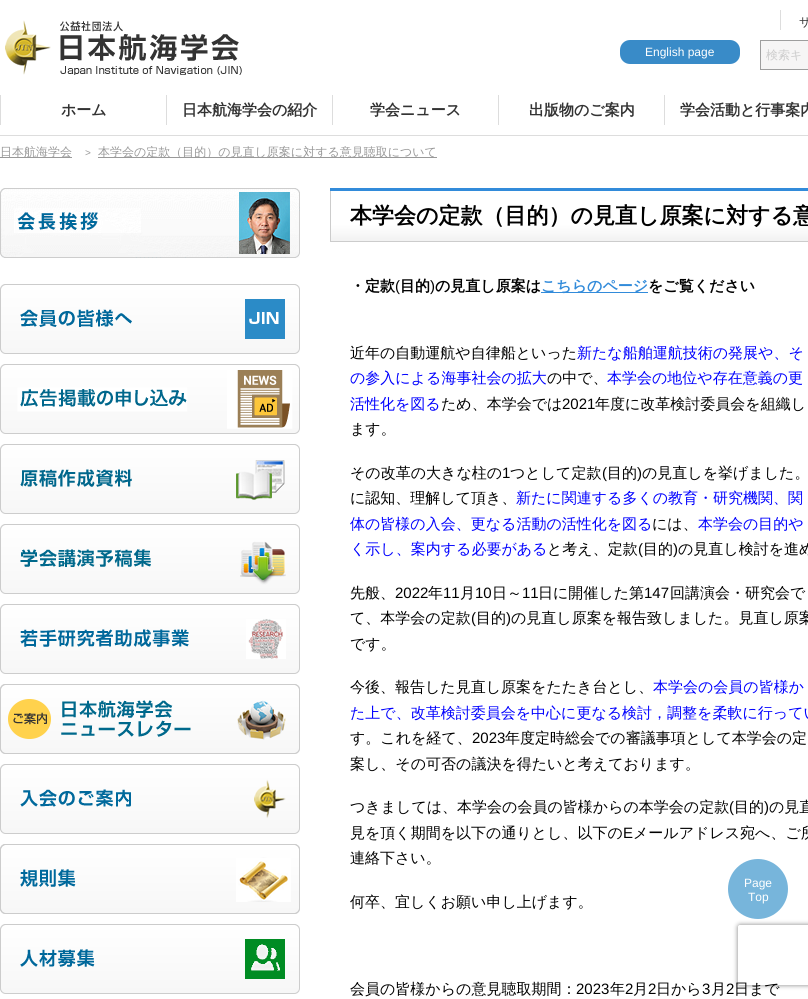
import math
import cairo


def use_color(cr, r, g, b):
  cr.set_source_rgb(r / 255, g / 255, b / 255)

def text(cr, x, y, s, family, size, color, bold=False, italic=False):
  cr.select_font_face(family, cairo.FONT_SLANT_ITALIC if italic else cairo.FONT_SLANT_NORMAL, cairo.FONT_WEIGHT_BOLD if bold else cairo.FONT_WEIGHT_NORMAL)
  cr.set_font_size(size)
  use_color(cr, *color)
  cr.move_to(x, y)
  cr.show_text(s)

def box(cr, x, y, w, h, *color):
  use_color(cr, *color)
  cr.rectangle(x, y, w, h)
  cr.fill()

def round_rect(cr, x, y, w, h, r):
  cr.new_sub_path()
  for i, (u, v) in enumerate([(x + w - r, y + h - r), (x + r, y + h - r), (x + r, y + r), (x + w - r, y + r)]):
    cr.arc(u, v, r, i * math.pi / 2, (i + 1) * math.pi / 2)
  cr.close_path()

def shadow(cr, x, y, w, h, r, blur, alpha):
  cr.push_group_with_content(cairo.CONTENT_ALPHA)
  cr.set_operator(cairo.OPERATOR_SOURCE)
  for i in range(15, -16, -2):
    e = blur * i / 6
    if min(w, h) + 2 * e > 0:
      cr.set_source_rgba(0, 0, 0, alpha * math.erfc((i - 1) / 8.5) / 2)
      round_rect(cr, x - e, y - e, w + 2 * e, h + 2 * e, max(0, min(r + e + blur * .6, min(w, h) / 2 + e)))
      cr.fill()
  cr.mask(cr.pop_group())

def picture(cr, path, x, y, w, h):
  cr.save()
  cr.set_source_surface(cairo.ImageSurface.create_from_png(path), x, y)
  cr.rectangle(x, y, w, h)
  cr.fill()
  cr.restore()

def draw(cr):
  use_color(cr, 255, 255, 255)
  cr.paint()
  picture(cr, "img_01.png", 5, 20, 237, 55)
  use_color(cr, 57, 139, 200)
  round_rect(cr, 620, 40, 120, 24, 10)
  cr.fill()
  use_color(cr, 246, 245, 245)
  cr.rectangle(760.5, 40.5, 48, 29)
  cr.fill_preserve()
  use_color(cr, 158, 158, 158)
  cr.set_line_width(1)
  cr.stroke()
  box(cr, 780, 10, 1, 20, 221, 221, 221)
  box(cr, 0, 95, 1, 30, 221, 221, 221)
  box(cr, 166, 95, 1, 30, 221, 221, 221)
  box(cr, 332, 95, 1, 30, 221, 221, 221)
  box(cr, 498, 95, 1, 30, 221, 221, 221)
  box(cr, 664, 95, 1, 30, 221, 221, 221)
  box(cr, 0, 135, 808, 1, 221, 221, 221)
  box(cr, 0, 157, 72, 1, 153, 153, 153)
  box(cr, 98, 157, 339, 1, 153, 153, 153)
  picture(cr, "img_02.png", 0, 188, 300, 70)
  picture(cr, "img_03.png", 0, 284, 300, 70)
  picture(cr, "img_04.png", 0, 364, 300, 70)
  picture(cr, "img_05.png", 0, 444, 300, 70)
  picture(cr, "img_06.png", 0, 524, 300, 70)
  picture(cr, "img_07.png", 0, 604, 300, 70)
  picture(cr, "img_08.png", 0, 684, 300, 70)
  picture(cr, "img_09.png", 0, 764, 300, 70)
  picture(cr, "img_10.png", 0, 844, 300, 70)
  picture(cr, "img_11.png", 0, 924, 300, 70)
  picture(cr, "img_12.png", 330, 188, 478, 54)
  box(cr, 541, 292, 107, 1, 50, 139, 218)
  use_color(cr, 119, 181, 219)
  cr.arc(758, 889, 30, 0, 2 * math.pi)
  cr.fill()
  cr.save()
  cr.set_fill_rule(cairo.FILL_RULE_EVEN_ODD)
  cr.new_path()
  cr.move_to(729, 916)
  cr.line_to(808, 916)
  cr.line_to(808, 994)
  cr.line_to(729, 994)
  cr.close_path()
  cr.move_to(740, 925)
  cr.line_to(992, 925)
  cr.curve_to(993, 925, 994, 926, 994, 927)
  cr.line_to(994, 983)
  cr.curve_to(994, 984, 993, 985, 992, 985)
  cr.line_to(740, 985)
  cr.curve_to(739, 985, 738, 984, 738, 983)
  cr.line_to(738, 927)
  cr.curve_to(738, 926, 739, 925, 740, 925)
  cr.close_path()
  cr.clip()
  use_color(cr, 128, 128, 128)
  shadow(cr, 738, 925, 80, 60, 2, 2.5, 1)
  cr.restore()
  text(cr, 645, 56, "English page", "Liberation Sans", 12, (255, 255, 255))
  text(cr, 766, 59, "検索キ", "WenQuanYi Zen Hei Medium", 12, (204, 204, 204))
  text(cr, 799, 26, "サ", "WenQuanYi Zen Hei Medium", 12, (51, 51, 51))
  text(cr, 61, 115, "ホーム", "WenQuanYi Zen Hei", 15, (51, 51, 51), bold=True)
  text(cr, 182, 115, "日本航海学会の紹介", "WenQuanYi Zen Hei", 15, (51, 51, 51), bold=True)
  text(cr, 370, 115, "学会ニュース", "WenQuanYi Zen Hei", 15, (51, 51, 51), bold=True)
  text(cr, 529, 115, "出版物のご案内", "WenQuanYi Zen Hei", 15, (51, 51, 51), bold=True)
  text(cr, 680, 115, "学会活動と行事案内", "WenQuanYi Zen Hei", 15, (51, 51, 51), bold=True)
  text(cr, 0, 156, "日本航海学会", "WenQuanYi Zen Hei Medium", 12, (153, 153, 153))
  text(cr, 85, 156, ">", "Liberation Sans", 10, (153, 153, 153))
  text(cr, 98, 156, "本学会の定款（目的）の見直し原案に対する意見聴取について", "WenQuanYi Zen Hei Medium", 12, (153, 153, 153))
  text(cr, 350, 223, "本学会の定款（目的）の見直し原案に対する意", "WenQuanYi Zen Hei", 22, (0, 0, 0), bold=True)
  text(cr, 350, 291, "・定款", "WenQuanYi Zen Hei", 15, (0, 0, 0), bold=True)
  text(cr, 395, 291, "(", "Liberation Sans", 15, (0, 0, 0))
  text(cr, 400, 291, "目的", "WenQuanYi Zen Hei", 15, (0, 0, 0), bold=True)
  text(cr, 430, 291, ")", "Liberation Sans", 15, (0, 0, 0))
  text(cr, 435, 291, "の見直し原案は", "WenQuanYi Zen Hei", 15, (0, 0, 0), bold=True)
  text(cr, 541, 291, "こちらのページ", "WenQuanYi Zen Hei", 15, (50, 139, 218), bold=True)
  text(cr, 648, 291, "をご覧ください", "WenQuanYi Zen Hei", 15, (0, 0, 0), bold=True)
  text(cr, 350, 358, "近年の自動運航や自律船といった", "WenQuanYi Zen Hei Medium", 15, (0, 0, 0))
  text(cr, 577, 358, "新たな船舶運航技術の発展や、そ", "WenQuanYi Zen Hei Medium", 15, (0, 0, 255))
  text(cr, 350, 383, "の参入による海事社会の拡大", "WenQuanYi Zen Hei Medium", 15, (0, 0, 255))
  text(cr, 547, 383, "の中で、", "WenQuanYi Zen Hei Medium", 15, (0, 0, 0))
  text(cr, 607, 383, "本学会の地位や存在意義の更", "WenQuanYi Zen Hei Medium", 15, (0, 0, 255))
  text(cr, 350, 409, "活性化を図る", "WenQuanYi Zen Hei Medium", 15, (0, 0, 255))
  text(cr, 441, 409, "ため、本学会では", "WenQuanYi Zen Hei Medium", 15, (0, 0, 0))
  text(cr, 562, 409, "2021", "Liberation Sans", 15, (0, 0, 0))
  text(cr, 595, 409, "年度に改革検討委員会を組織し", "WenQuanYi Zen Hei Medium", 15, (0, 0, 0))
  text(cr, 350, 434, "ます。", "WenQuanYi Zen Hei Medium", 15, (0, 0, 0))
  text(cr, 350, 478, "その改革の大きな柱の", "WenQuanYi Zen Hei Medium", 15, (0, 0, 0))
  text(cr, 502, 478, "1", "Liberation Sans", 15, (0, 0, 0))
  text(cr, 510, 478, "つとして定款", "WenQuanYi Zen Hei Medium", 15, (0, 0, 0))
  text(cr, 602, 478, "(", "Liberation Sans", 15, (0, 0, 0))
  text(cr, 607, 478, "目的", "WenQuanYi Zen Hei Medium", 15, (0, 0, 0))
  text(cr, 637, 478, ")", "Liberation Sans", 15, (0, 0, 0))
  text(cr, 642, 478, "の見直しを挙げました。", "WenQuanYi Zen Hei Medium", 15, (0, 0, 0))
  text(cr, 350, 503, "に認知、理解して頂き、", "WenQuanYi Zen Hei Medium", 15, (0, 0, 0))
  text(cr, 516, 503, "新たに関連する多くの教育・研究機関、関", "WenQuanYi Zen Hei Medium", 15, (0, 0, 255))
  text(cr, 350, 529, "体の皆様の入会、更なる活動の活性化を図る", "WenQuanYi Zen Hei Medium", 15, (0, 0, 255))
  text(cr, 652, 529, "には、", "WenQuanYi Zen Hei Medium", 15, (0, 0, 0))
  text(cr, 698, 529, "本学会の目的や", "WenQuanYi Zen Hei Medium", 15, (0, 0, 255))
  text(cr, 350, 554, "く示し、案内する必要がある", "WenQuanYi Zen Hei Medium", 15, (0, 0, 255))
  text(cr, 547, 554, "と考え、定款", "WenQuanYi Zen Hei Medium", 15, (0, 0, 0))
  text(cr, 638, 554, "(", "Liberation Sans", 15, (0, 0, 0))
  text(cr, 643, 554, "目的", "WenQuanYi Zen Hei Medium", 15, (0, 0, 0))
  text(cr, 673, 554, ")", "Liberation Sans", 15, (0, 0, 0))
  text(cr, 678, 554, "の見直し検討を進め", "WenQuanYi Zen Hei Medium", 15, (0, 0, 0))
  text(cr, 350, 598, "先般、", "WenQuanYi Zen Hei Medium", 15, (0, 0, 0))
  text(cr, 395, 598, "2022", "Liberation Sans", 15, (0, 0, 0))
  text(cr, 428, 598, "年", "WenQuanYi Zen Hei Medium", 15, (0, 0, 0))
  text(cr, 443, 598, "11", "Liberation Sans", 15, (0, 0, 0))
  text(cr, 460, 598, "月", "WenQuanYi Zen Hei Medium", 15, (0, 0, 0))
  text(cr, 475, 598, "10", "Liberation Sans", 15, (0, 0, 0))
  text(cr, 492, 598, "日～", "WenQuanYi Zen Hei Medium", 15, (0, 0, 0))
  text(cr, 522, 598, "11", "Liberation Sans", 15, (0, 0, 0))
  text(cr, 538, 598, "日に開催した第", "WenQuanYi Zen Hei Medium", 15, (0, 0, 0))
  text(cr, 644, 598, "147", "Liberation Sans", 15, (0, 0, 0))
  text(cr, 670, 598, "回講演会・研究会で", "WenQuanYi Zen Hei Medium", 15, (0, 0, 0))
  text(cr, 350, 623, "て、本学会の定款", "WenQuanYi Zen Hei Medium", 15, (0, 0, 0))
  text(cr, 471, 623, "(", "Liberation Sans", 15, (0, 0, 0))
  text(cr, 476, 623, "目的", "WenQuanYi Zen Hei Medium", 15, (0, 0, 0))
  text(cr, 506, 623, ")", "Liberation Sans", 15, (0, 0, 0))
  text(cr, 511, 623, "の見直し原案を報告致しました。見直し原案", "WenQuanYi Zen Hei Medium", 15, (0, 0, 0))
  text(cr, 350, 649, "です。", "WenQuanYi Zen Hei Medium", 15, (0, 0, 0))
  text(cr, 350, 692, "今後、報告した見直し原案をたたき台とし、", "WenQuanYi Zen Hei Medium", 15, (0, 0, 0))
  text(cr, 653, 692, "本学会の会員の皆様か", "WenQuanYi Zen Hei Medium", 15, (0, 0, 255))
  text(cr, 350, 718, "た上で、改革検討委員会を中心に更なる検討，調整を柔軟に行ってい", "WenQuanYi Zen Hei Medium", 15, (0, 0, 255))
  text(cr, 350, 743, "す。これを経て、", "WenQuanYi Zen Hei Medium", 15, (0, 0, 0))
  text(cr, 472, 743, "2023", "Liberation Sans", 15, (0, 0, 0))
  text(cr, 505, 743, "年度定時総会での審議事項として本学会の定", "WenQuanYi Zen Hei Medium", 15, (0, 0, 0))
  text(cr, 350, 769, "案し、その可否の議決を得たいと考えております。", "WenQuanYi Zen Hei Medium", 15, (0, 0, 0))
  text(cr, 350, 812, "つきましては、本学会の会員の皆様からの本学会の定款", "WenQuanYi Zen Hei Medium", 15, (0, 0, 0))
  text(cr, 729, 812, "(", "Liberation Sans", 15, (0, 0, 0))
  text(cr, 734, 812, "目的", "WenQuanYi Zen Hei Medium", 15, (0, 0, 0))
  text(cr, 764, 812, ")", "Liberation Sans", 15, (0, 0, 0))
  text(cr, 769, 812, "の見直", "WenQuanYi Zen Hei Medium", 15, (0, 0, 0))
  text(cr, 350, 838, "見を頂く期間を以下の通りとし、以下の", "WenQuanYi Zen Hei Medium", 15, (0, 0, 0))
  text(cr, 623, 838, "E", "Liberation Sans", 15, (0, 0, 0))
  text(cr, 633, 838, "メールアドレス宛へ、ご所", "WenQuanYi Zen Hei Medium", 15, (0, 0, 0))
  text(cr, 350, 863, "連絡下さい。", "WenQuanYi Zen Hei Medium", 15, (0, 0, 0))
  text(cr, 350, 907, "何卒、宜しくお願い申し上げます。", "WenQuanYi Zen Hei Medium", 15, (0, 0, 0))
  text(cr, 350, 994, "会員の皆様からの意見聴取期間：", "WenQuanYi Zen Hei Medium", 15, (0, 0, 0))
  text(cr, 576, 994, "2023", "Liberation Sans", 15, (0, 0, 0))
  text(cr, 610, 994, "年", "WenQuanYi Zen Hei Medium", 15, (0, 0, 0))
  text(cr, 625, 994, "2", "Liberation Sans", 15, (0, 0, 0))
  text(cr, 633, 994, "月", "WenQuanYi Zen Hei Medium", 15, (0, 0, 0))
  text(cr, 648, 994, "2", "Liberation Sans", 15, (0, 0, 0))
  text(cr, 656, 994, "日から", "WenQuanYi Zen Hei Medium", 15, (0, 0, 0))
  text(cr, 702, 994, "3", "Liberation Sans", 15, (0, 0, 0))
  text(cr, 711, 994, "月", "WenQuanYi Zen Hei Medium", 15, (0, 0, 0))
  text(cr, 726, 994, "2", "Liberation Sans", 15, (0, 0, 0))
  text(cr, 734, 994, "日まで", "WenQuanYi Zen Hei Medium", 15, (0, 0, 0))
  text(cr, 744, 887, "Page", "Liberation Sans", 12, (255, 255, 255))
  text(cr, 748, 901, "Top", "Liberation Sans", 12, (255, 255, 255))


surface = cairo.ImageSurface(cairo.FORMAT_RGB24, 808, 999)
cr = cairo.Context(surface)
options = cairo.FontOptions()
options.set_hint_metrics(cairo.HINT_METRICS_OFF)
options.set_hint_style(cairo.HINT_STYLE_NONE)
cr.set_font_options(options)
cr.set_miter_limit(4)
draw(cr)
surface.write_to_png("out.png")
